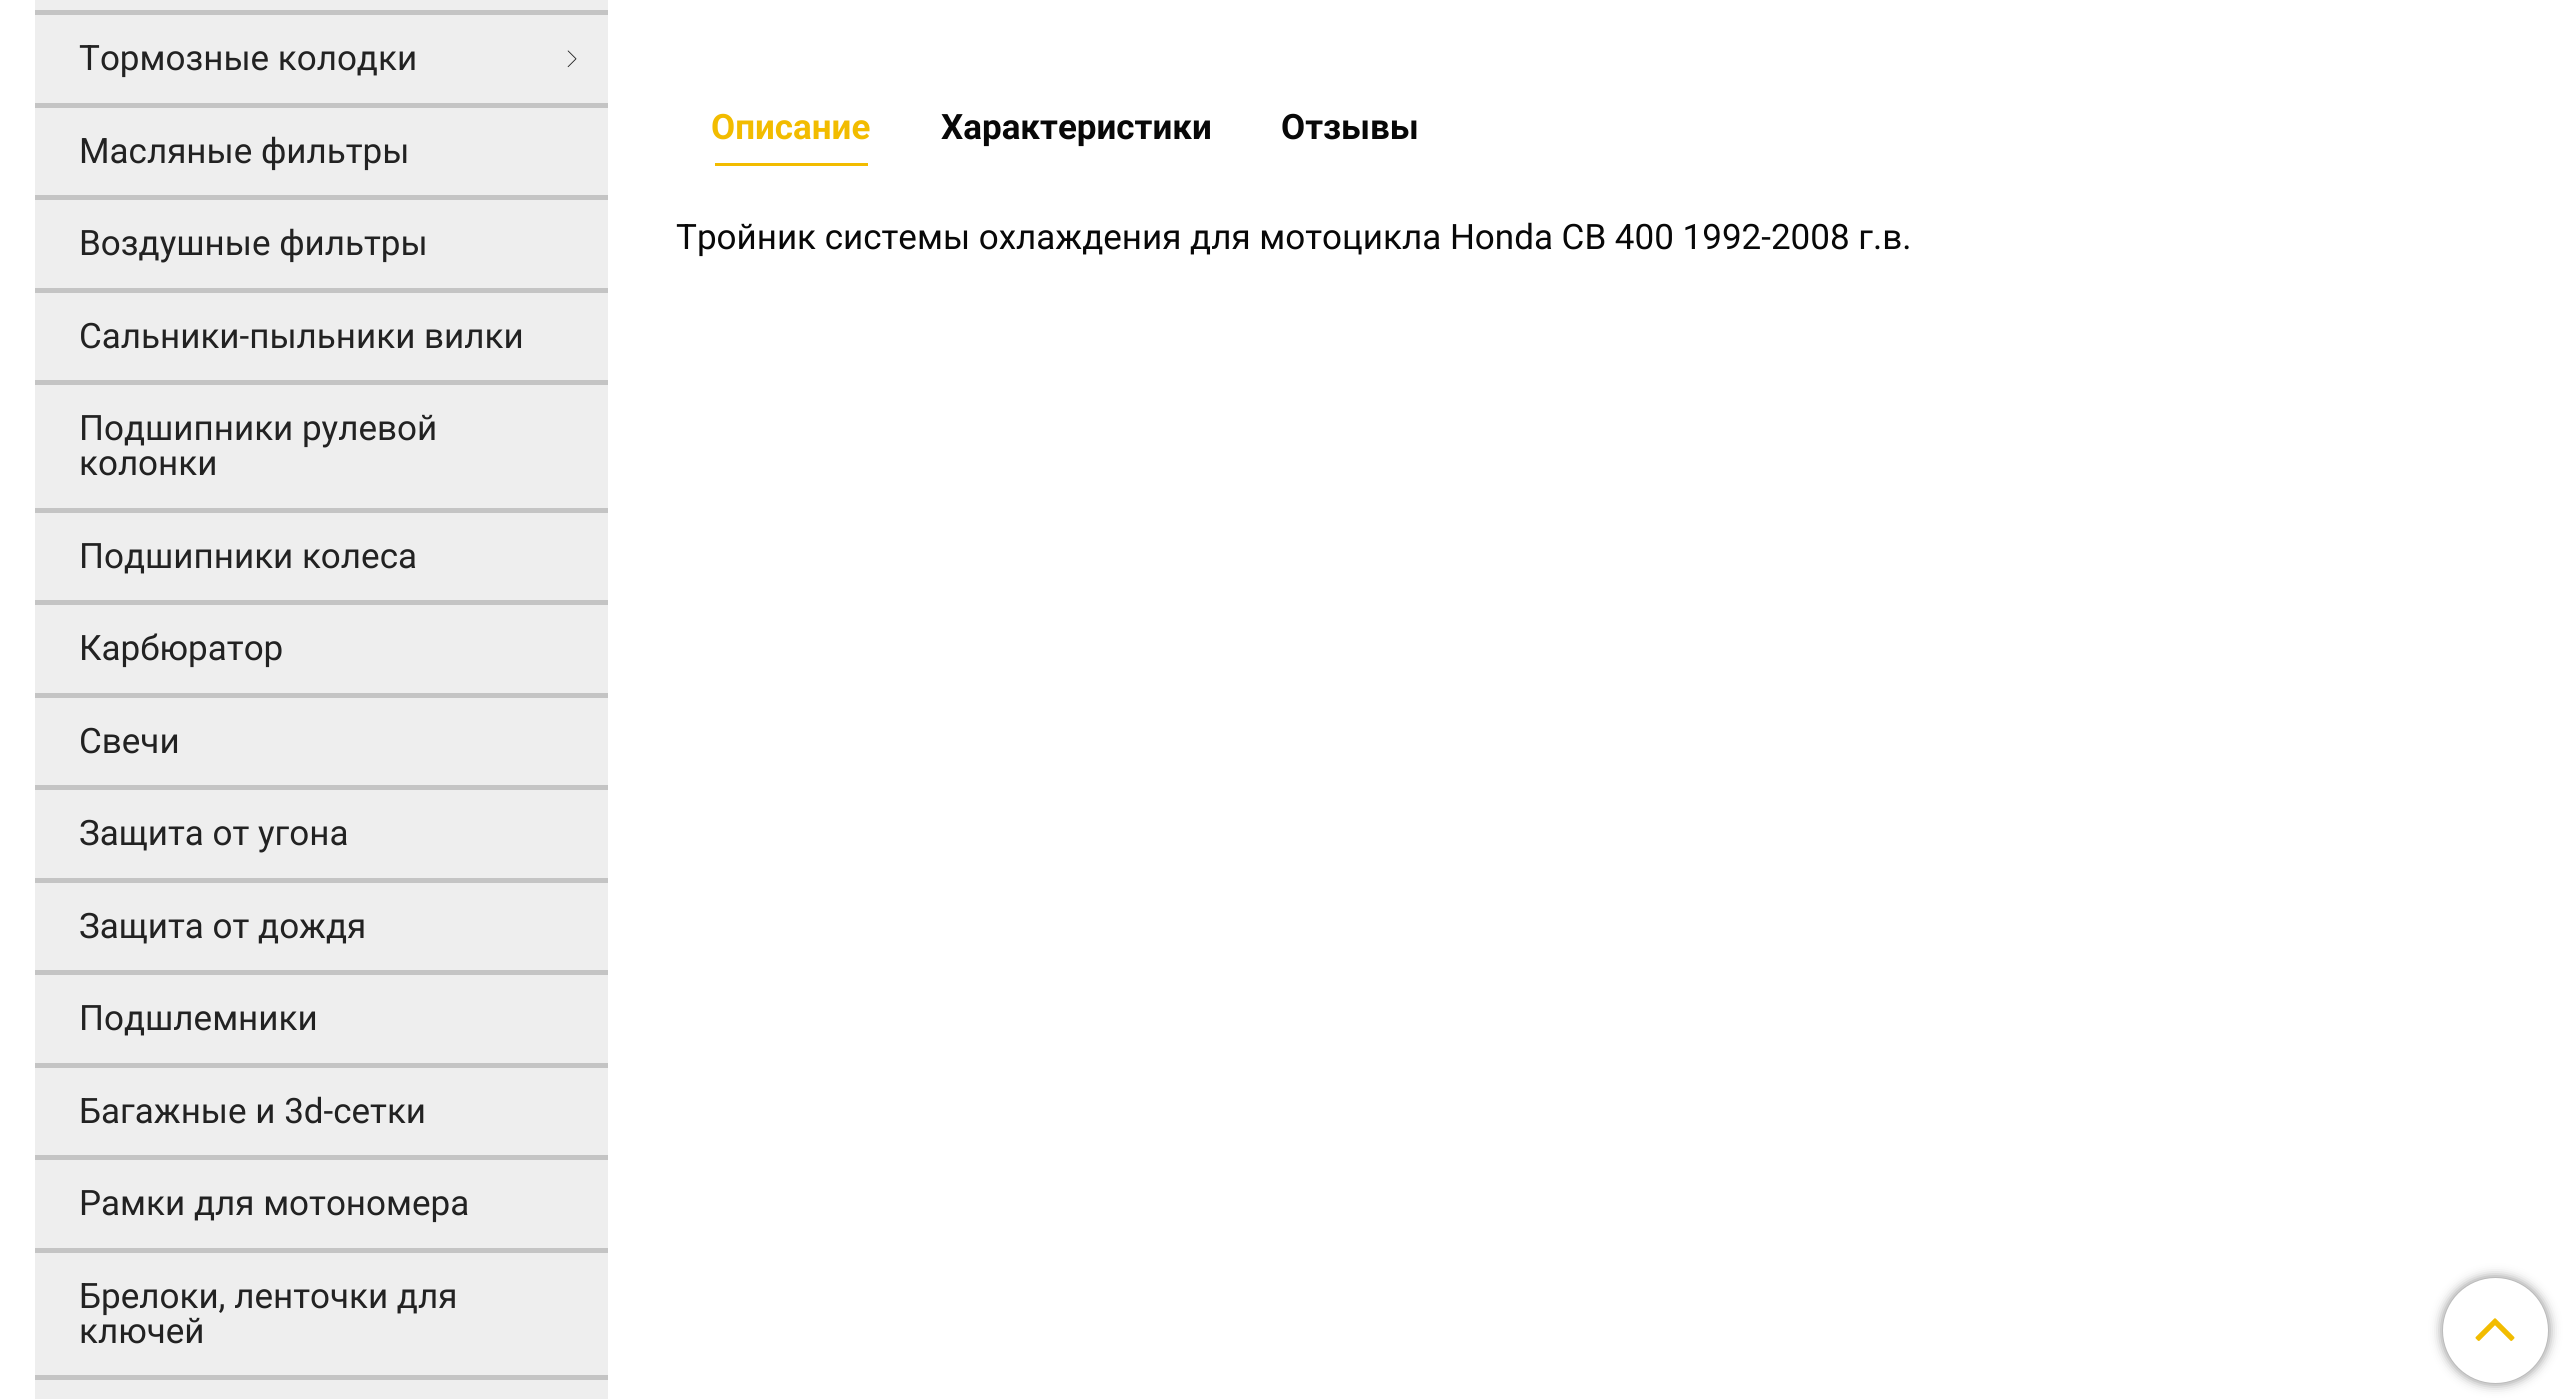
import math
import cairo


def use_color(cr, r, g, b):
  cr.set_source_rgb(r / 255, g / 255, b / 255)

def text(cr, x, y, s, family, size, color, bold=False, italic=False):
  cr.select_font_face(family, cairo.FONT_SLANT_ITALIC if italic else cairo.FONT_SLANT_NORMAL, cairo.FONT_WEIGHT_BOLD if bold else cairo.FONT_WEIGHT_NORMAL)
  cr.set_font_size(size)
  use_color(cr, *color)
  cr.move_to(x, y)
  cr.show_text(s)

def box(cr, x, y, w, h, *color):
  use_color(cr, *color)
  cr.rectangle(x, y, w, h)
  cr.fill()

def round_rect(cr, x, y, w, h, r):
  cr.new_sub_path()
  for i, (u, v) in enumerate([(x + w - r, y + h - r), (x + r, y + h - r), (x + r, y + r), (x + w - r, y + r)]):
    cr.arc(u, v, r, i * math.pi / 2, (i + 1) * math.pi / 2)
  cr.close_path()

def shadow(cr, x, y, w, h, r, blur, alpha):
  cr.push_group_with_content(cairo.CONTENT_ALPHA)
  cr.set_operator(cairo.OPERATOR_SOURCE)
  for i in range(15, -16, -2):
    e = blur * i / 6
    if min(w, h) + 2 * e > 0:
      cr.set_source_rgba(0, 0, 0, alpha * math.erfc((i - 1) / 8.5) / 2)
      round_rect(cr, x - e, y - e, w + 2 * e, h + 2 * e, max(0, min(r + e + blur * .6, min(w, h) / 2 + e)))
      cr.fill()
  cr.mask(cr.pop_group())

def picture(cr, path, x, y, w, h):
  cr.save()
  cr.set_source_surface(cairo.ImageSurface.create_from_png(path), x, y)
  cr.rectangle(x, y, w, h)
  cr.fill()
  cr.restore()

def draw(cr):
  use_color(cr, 255, 255, 255)
  cr.paint()
  box(cr, 35, 0, 573, 10, 238, 238, 238)
  box(cr, 35, 10, 573, 5, 196, 196, 196)
  box(cr, 35, 15, 573, 88, 238, 238, 238)
  box(cr, 35, 103, 573, 5, 196, 196, 196)
  picture(cr, "img_01.png", 567, 50, 10, 18)
  box(cr, 35, 108, 573, 87, 238, 238, 238)
  box(cr, 35, 195, 573, 5, 196, 196, 196)
  box(cr, 35, 200, 573, 88, 238, 238, 238)
  box(cr, 35, 288, 573, 5, 196, 196, 196)
  box(cr, 35, 293, 573, 87, 238, 238, 238)
  box(cr, 35, 380, 573, 5, 196, 196, 196)
  box(cr, 35, 385, 573, 123, 238, 238, 238)
  box(cr, 35, 508, 573, 5, 196, 196, 196)
  box(cr, 35, 513, 573, 87, 238, 238, 238)
  box(cr, 35, 600, 573, 5, 196, 196, 196)
  box(cr, 35, 605, 573, 88, 238, 238, 238)
  box(cr, 35, 693, 573, 5, 196, 196, 196)
  box(cr, 35, 698, 573, 87, 238, 238, 238)
  box(cr, 35, 785, 573, 5, 196, 196, 196)
  box(cr, 35, 790, 573, 88, 238, 238, 238)
  box(cr, 35, 878, 573, 5, 196, 196, 196)
  box(cr, 35, 883, 573, 87, 238, 238, 238)
  box(cr, 35, 970, 573, 5, 196, 196, 196)
  box(cr, 35, 975, 573, 88, 238, 238, 238)
  box(cr, 35, 1063, 573, 5, 196, 196, 196)
  box(cr, 35, 1068, 573, 87, 238, 238, 238)
  box(cr, 35, 1155, 573, 5, 196, 196, 196)
  box(cr, 35, 1160, 573, 88, 238, 238, 238)
  box(cr, 35, 1248, 573, 5, 196, 196, 196)
  box(cr, 35, 1253, 573, 122, 238, 238, 238)
  box(cr, 35, 1375, 573, 5, 196, 196, 196)
  box(cr, 35, 1380, 573, 19, 238, 238, 238)
  box(cr, 715, 163, 153, 3, 242, 188, 0)
  use_color(cr, 119, 119, 119)
  shadow(cr, 2443, 1278, 105, 105, 52.5, 6, 1)
  use_color(cr, 255, 255, 255)
  cr.arc(2495.5, 1330.5, 52.5, 0, 2 * math.pi)
  cr.fill()
  picture(cr, "img_02.png", 2475, 1318, 40, 23)
  text(cr, 79, 70, "Тормозные колодки", "Roboto", 35, (34, 34, 34))
  text(cr, 79, 163, "Масляные фильтры", "Roboto", 35, (34, 34, 34))
  text(cr, 79, 255, "Воздушные фильтры", "Roboto", 35, (34, 34, 34))
  text(cr, 79, 348, "Сальники-пыльники вилки", "Roboto", 35, (34, 34, 34))
  text(cr, 79, 440, "Подшипники рулевой", "Roboto", 35, (34, 34, 34))
  text(cr, 79, 475, "колонки", "Roboto", 35, (34, 34, 34))
  text(cr, 79, 568, "Подшипники колеса", "Roboto", 35, (34, 34, 34))
  text(cr, 79, 660, "Карбюратор", "Roboto", 35, (34, 34, 34))
  text(cr, 79, 753, "Свечи", "Roboto", 35, (34, 34, 34))
  text(cr, 79, 845, "Защита от угона", "Roboto", 35, (34, 34, 34))
  text(cr, 79, 938, "Защита от дождя", "Roboto", 35, (34, 34, 34))
  text(cr, 79, 1030, "Подшлемники", "Roboto", 35, (34, 34, 34))
  text(cr, 79, 1123, "Багажные и 3d-сетки", "Roboto", 35, (34, 34, 34))
  text(cr, 79, 1215, "Рамки для мотономера", "Roboto", 35, (34, 34, 34))
  text(cr, 79, 1308, "Брелоки, ленточки для", "Roboto", 35, (34, 34, 34))
  text(cr, 79, 1343, "ключей", "Roboto", 35, (34, 34, 34))
  text(cr, 711, 139, "Описание", "Roboto", 35, (242, 188, 0), bold=True)
  text(cr, 941, 139, "Характеристики", "Roboto", 35, (8, 8, 8), bold=True)
  text(cr, 1281, 139, "Отзывы", "Roboto", 35, (8, 8, 8), bold=True)
  text(cr, 676, 249, "Тройник системы охлаждения для мотоцикла Honda CB 400 1992-2008 г.в.", "Roboto", 35, (8, 8, 8))


surface = cairo.ImageSurface(cairo.FORMAT_RGB24, 2563, 1399)
cr = cairo.Context(surface)
options = cairo.FontOptions()
options.set_hint_metrics(cairo.HINT_METRICS_OFF)
options.set_hint_style(cairo.HINT_STYLE_NONE)
cr.set_font_options(options)
cr.set_miter_limit(4)
draw(cr)
surface.write_to_png("out.png")
